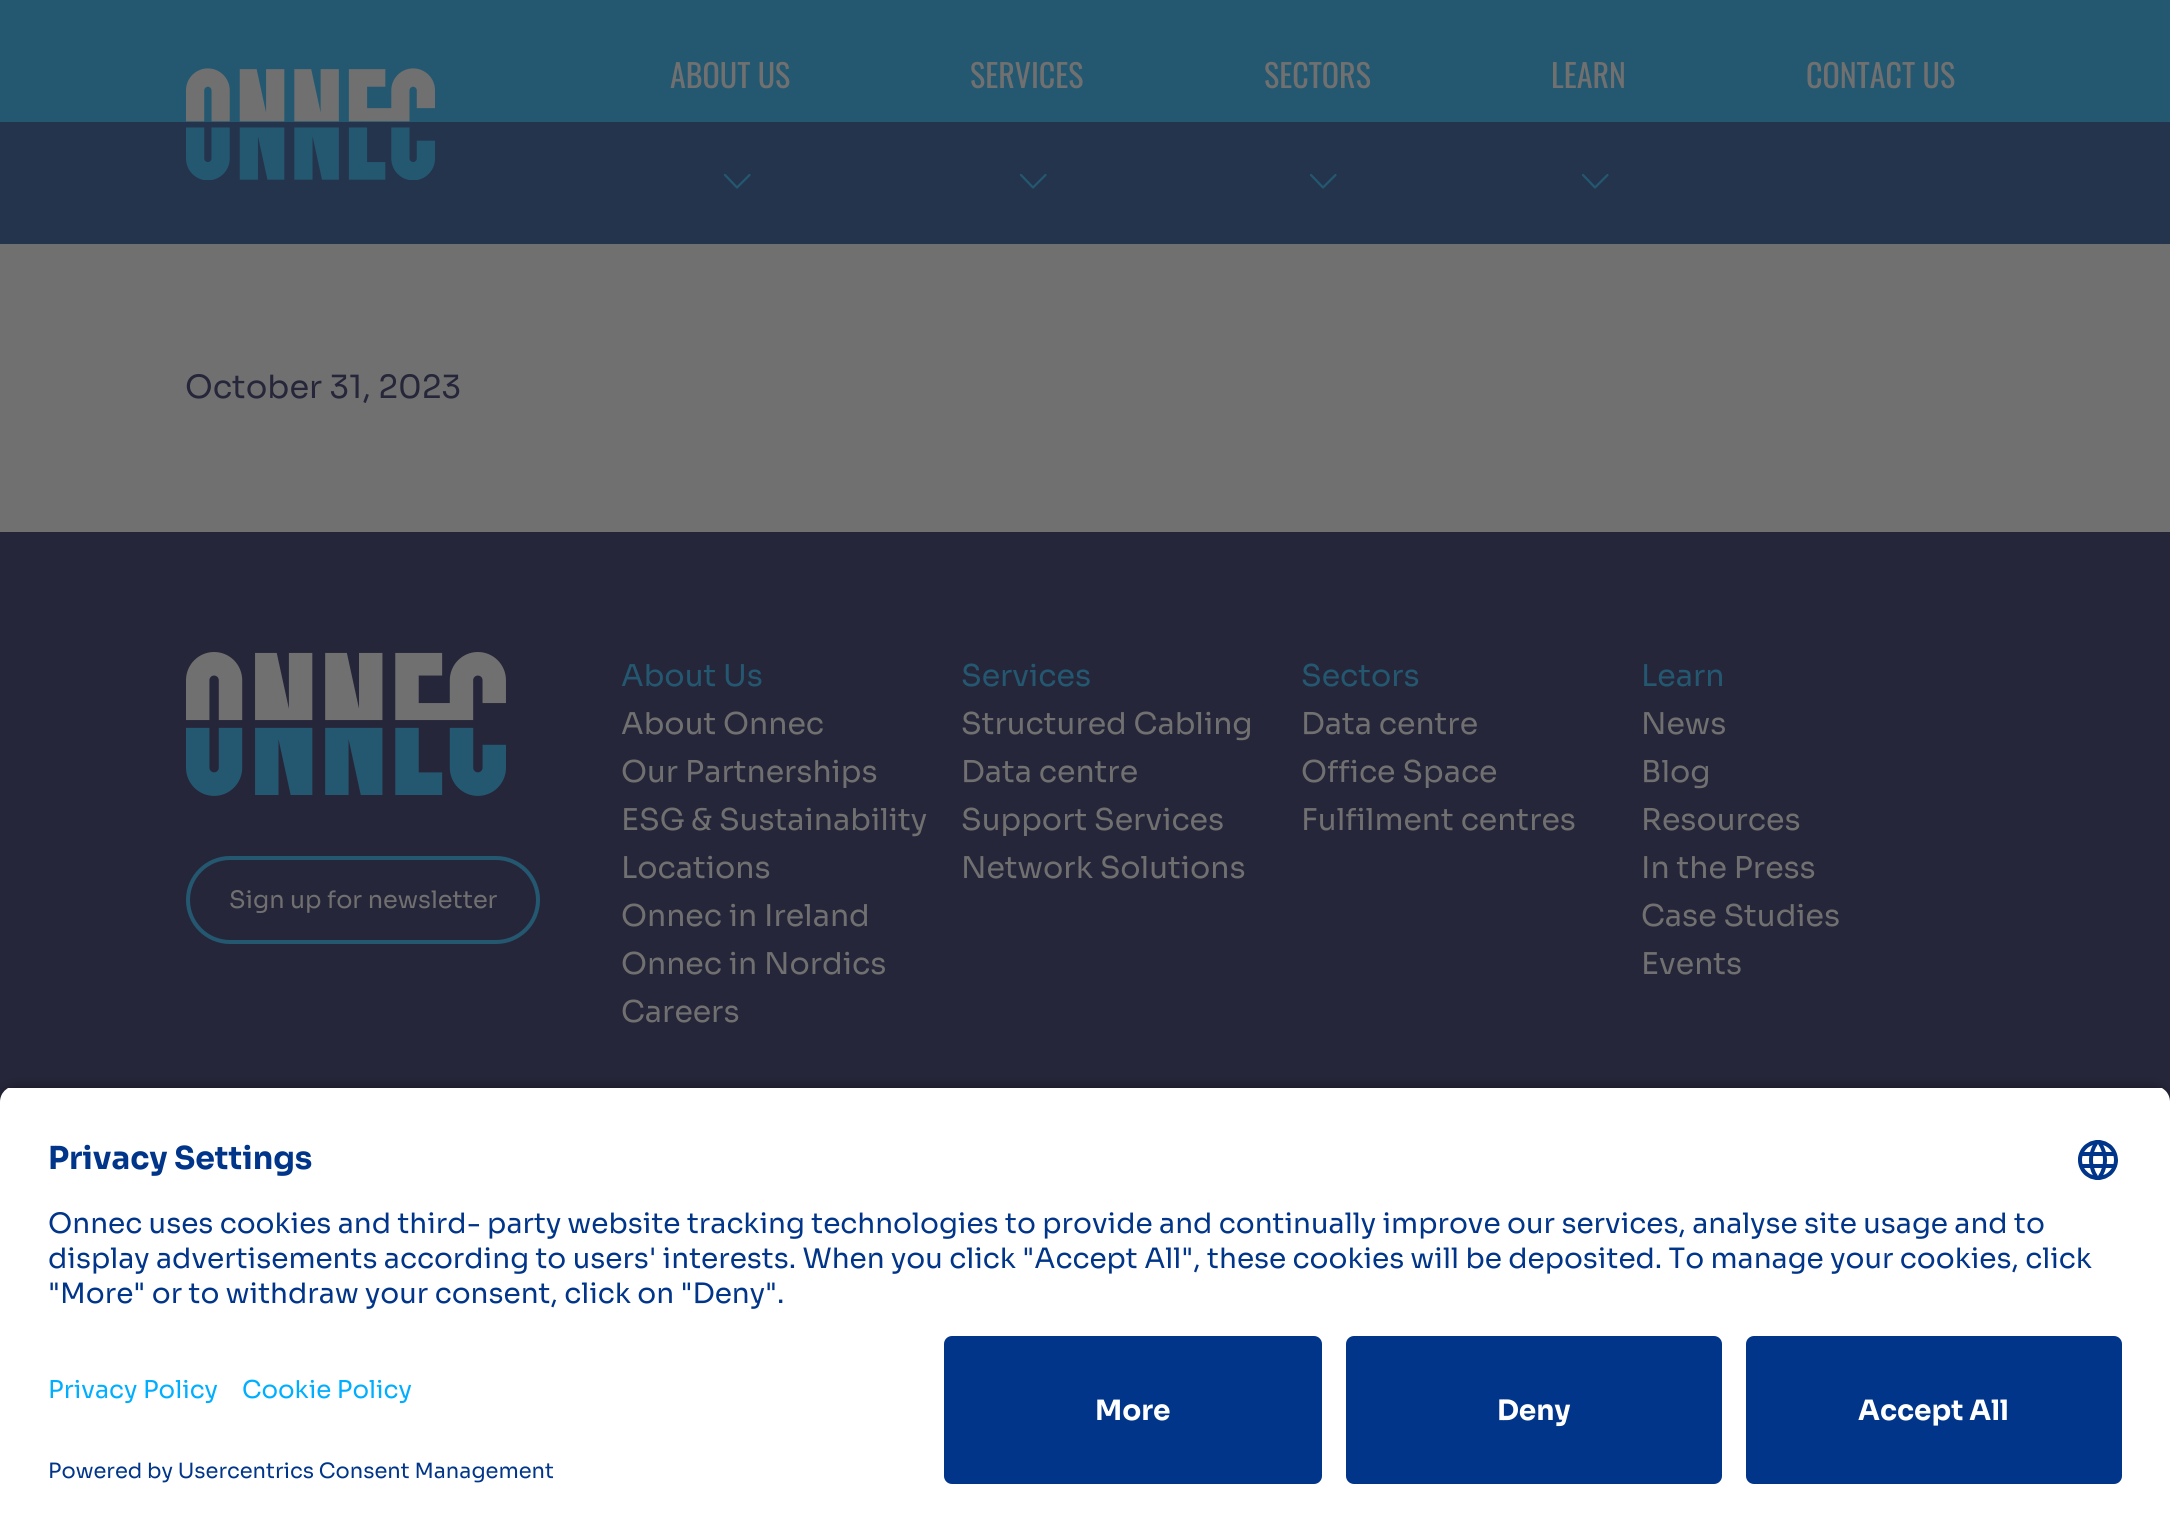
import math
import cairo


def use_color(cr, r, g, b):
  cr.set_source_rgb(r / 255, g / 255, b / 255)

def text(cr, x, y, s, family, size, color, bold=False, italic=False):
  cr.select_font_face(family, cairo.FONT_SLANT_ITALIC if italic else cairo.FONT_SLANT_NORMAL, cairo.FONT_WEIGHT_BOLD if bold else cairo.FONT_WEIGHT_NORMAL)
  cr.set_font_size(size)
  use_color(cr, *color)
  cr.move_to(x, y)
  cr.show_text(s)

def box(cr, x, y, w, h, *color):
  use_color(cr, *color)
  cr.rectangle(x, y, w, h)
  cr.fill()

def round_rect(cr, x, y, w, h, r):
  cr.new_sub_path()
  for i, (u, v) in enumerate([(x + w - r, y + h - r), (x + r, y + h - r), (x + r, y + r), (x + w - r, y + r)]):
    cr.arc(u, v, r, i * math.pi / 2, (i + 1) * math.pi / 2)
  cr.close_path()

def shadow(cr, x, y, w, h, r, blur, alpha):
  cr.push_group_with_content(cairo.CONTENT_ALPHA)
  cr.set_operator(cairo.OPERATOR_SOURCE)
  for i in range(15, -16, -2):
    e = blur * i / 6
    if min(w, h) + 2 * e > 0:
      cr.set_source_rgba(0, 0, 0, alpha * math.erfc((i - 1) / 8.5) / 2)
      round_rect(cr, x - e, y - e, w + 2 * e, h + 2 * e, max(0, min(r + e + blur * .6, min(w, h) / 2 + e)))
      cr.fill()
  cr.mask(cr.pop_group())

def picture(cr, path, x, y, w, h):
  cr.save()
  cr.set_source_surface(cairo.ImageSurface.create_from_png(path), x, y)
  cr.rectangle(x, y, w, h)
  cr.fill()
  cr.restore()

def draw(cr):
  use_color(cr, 112, 112, 112)
  cr.paint()
  box(cr, 0, 0, 2170, 122, 36, 88, 112)
  box(cr, 0, 122, 2170, 122, 36, 52, 77)
  picture(cr, "img_01.png", 186, 68, 250, 112)
  cr.new_path()
  cr.move_to(725, 175)
  cr.line_to(737, 187.5)
  cr.move_to(749.5, 175)
  cr.line_to(737, 187.5)
  use_color(cr, 36, 88, 112)
  cr.set_line_width(2.2)
  cr.set_line_cap(cairo.LINE_CAP_ROUND)
  cr.stroke()
  cr.new_path()
  cr.move_to(1021, 175)
  cr.line_to(1033, 187.5)
  cr.move_to(1045.5, 175)
  cr.line_to(1033, 187.5)
  cr.stroke()
  cr.new_path()
  cr.move_to(1311, 175)
  cr.line_to(1323, 187.5)
  cr.move_to(1335.5, 175)
  cr.line_to(1323, 187.5)
  cr.stroke()
  cr.new_path()
  cr.move_to(1583, 175)
  cr.line_to(1595, 187.5)
  cr.move_to(1607.5, 175)
  cr.line_to(1595, 187.5)
  cr.stroke()
  box(cr, 0, 532, 2170, 570, 38, 38, 58)
  picture(cr, "img_02.png", 186, 652, 320, 144)
  round_rect(cr, 188, 858, 350, 84, 42)
  use_color(cr, 36, 88, 112)
  cr.set_line_width(4)
  cr.set_line_cap(cairo.LINE_CAP_BUTT)
  cr.stroke()
  use_color(cr, 0, 0, 0)
  shadow(cr, 0, 1092, 2170, 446, 16, 7, 0.8)
  cr.save()
  cr.new_path()
  cr.move_to(16, 1086)
  cr.line_to(2154, 1086)
  cr.curve_to(2163, 1086, 2170, 1093, 2170, 1102)
  cr.line_to(2170, 1320)
  cr.line_to(0, 1320)
  cr.line_to(0, 1102)
  cr.curve_to(0, 1093, 7, 1086, 16, 1086)
  cr.close_path()
  cr.clip()
  box(cr, 0, 1088, 2170, 232, 255, 255, 255)
  cr.restore()
  picture(cr, "img_03.png", 2078, 1140, 40, 40)
  box(cr, 0, 1320, 2170, 212, 255, 255, 255)
  use_color(cr, 0, 53, 138)
  round_rect(cr, 944, 1336, 378, 148, 8)
  cr.fill()
  round_rect(cr, 1346, 1336, 376, 148, 8)
  cr.fill()
  round_rect(cr, 1746, 1336, 376, 148, 8)
  cr.fill()
  text(cr, 670, 88, "ABOUT US", "Oswald", 32, (112, 112, 112))
  text(cr, 970, 88, "SERVICES", "Oswald", 32, (112, 112, 112))
  text(cr, 1264, 88, "SECTORS", "Oswald", 32, (112, 112, 112))
  text(cr, 1551, 88, "LEARN", "Oswald", 32, (112, 112, 112))
  text(cr, 1806, 88, "CONTACT US", "Oswald", 32, (112, 112, 112))
  text(cr, 185, 398, "October 31, 2023", "Sora", 32, (38, 38, 58))
  text(cr, 229, 908, "Sign up for newsletter", "Sora", 24, (112, 112, 112))
  text(cr, 621, 686, "About Us", "Sora", 30, (36, 88, 112))
  text(cr, 621, 734, "About Onnec", "Sora", 30, (112, 112, 112))
  text(cr, 621, 782, "Our Partnerships", "Sora", 30, (112, 112, 112))
  text(cr, 621, 830, "ESG & Sustainability", "Sora", 30, (112, 112, 112))
  text(cr, 621, 878, "Locations", "Sora", 30, (112, 112, 112))
  text(cr, 621, 926, "Onnec in Ireland", "Sora", 30, (112, 112, 112))
  text(cr, 621, 974, "Onnec in Nordics", "Sora", 30, (112, 112, 112))
  text(cr, 621, 1022, "Careers", "Sora", 30, (112, 112, 112))
  text(cr, 961, 686, "Services", "Sora", 30, (36, 88, 112))
  text(cr, 961, 734, "Structured Cabling", "Sora", 30, (112, 112, 112))
  text(cr, 961, 782, "Data centre", "Sora", 30, (112, 112, 112))
  text(cr, 961, 830, "Support Services", "Sora", 30, (112, 112, 112))
  text(cr, 961, 878, "Network Solutions", "Sora", 30, (112, 112, 112))
  text(cr, 1301, 686, "Sectors", "Sora", 30, (36, 88, 112))
  text(cr, 1301, 734, "Data centre", "Sora", 30, (112, 112, 112))
  text(cr, 1301, 782, "Office Space", "Sora", 30, (112, 112, 112))
  text(cr, 1301, 830, "Fulfilment centres", "Sora", 30, (112, 112, 112))
  text(cr, 1641, 686, "Learn", "Sora", 30, (36, 88, 112))
  text(cr, 1641, 734, "News", "Sora", 30, (112, 112, 112))
  text(cr, 1641, 782, "Blog", "Sora", 30, (112, 112, 112))
  text(cr, 1641, 830, "Resources", "Sora", 30, (112, 112, 112))
  text(cr, 1641, 878, "In the Press", "Sora", 30, (112, 112, 112))
  text(cr, 1641, 926, "Case Studies", "Sora", 30, (112, 112, 112))
  text(cr, 1641, 974, "Events", "Sora", 30, (112, 112, 112))
  text(cr, 48, 1169, "Privacy Settings", "Sora", 31.5, (0, 53, 138), bold=True)
  text(cr, 48, 1233, "Onnec uses cookies and third- party website tracking technologies to provide and continually improve our services, analyse site usage and to", "Sora", 28, (0, 53, 138))
  text(cr, 48, 1268, "display advertisements according to users' interests. When you click \"Accept All\", these cookies will be deposited. To manage your cookies, click", "Sora", 28, (0, 53, 138))
  text(cr, 48, 1303, "\"More\" or to withdraw your consent, click on \"Deny\".", "Sora", 28, (0, 53, 138))
  text(cr, 48, 1398, "Privacy Policy", "Sora", 24.5, (0, 174, 255))
  text(cr, 242, 1398, "Cookie Policy", "Sora", 24.5, (0, 174, 255))
  text(cr, 48, 1478, "Powered by Usercentrics Consent Management", "Sora", 21, (0, 53, 138))
  text(cr, 1095, 1420, "More", "Sora", 28, (255, 255, 255), bold=True)
  text(cr, 1497, 1420, "Deny", "Sora", 28, (255, 255, 255), bold=True)
  text(cr, 1858, 1420, "Accept All", "Sora", 28, (255, 255, 255), bold=True)


surface = cairo.ImageSurface(cairo.FORMAT_RGB24, 2170, 1532)
cr = cairo.Context(surface)
options = cairo.FontOptions()
options.set_hint_metrics(cairo.HINT_METRICS_OFF)
options.set_hint_style(cairo.HINT_STYLE_NONE)
cr.set_font_options(options)
cr.set_miter_limit(4)
draw(cr)
surface.write_to_png("out.png")
